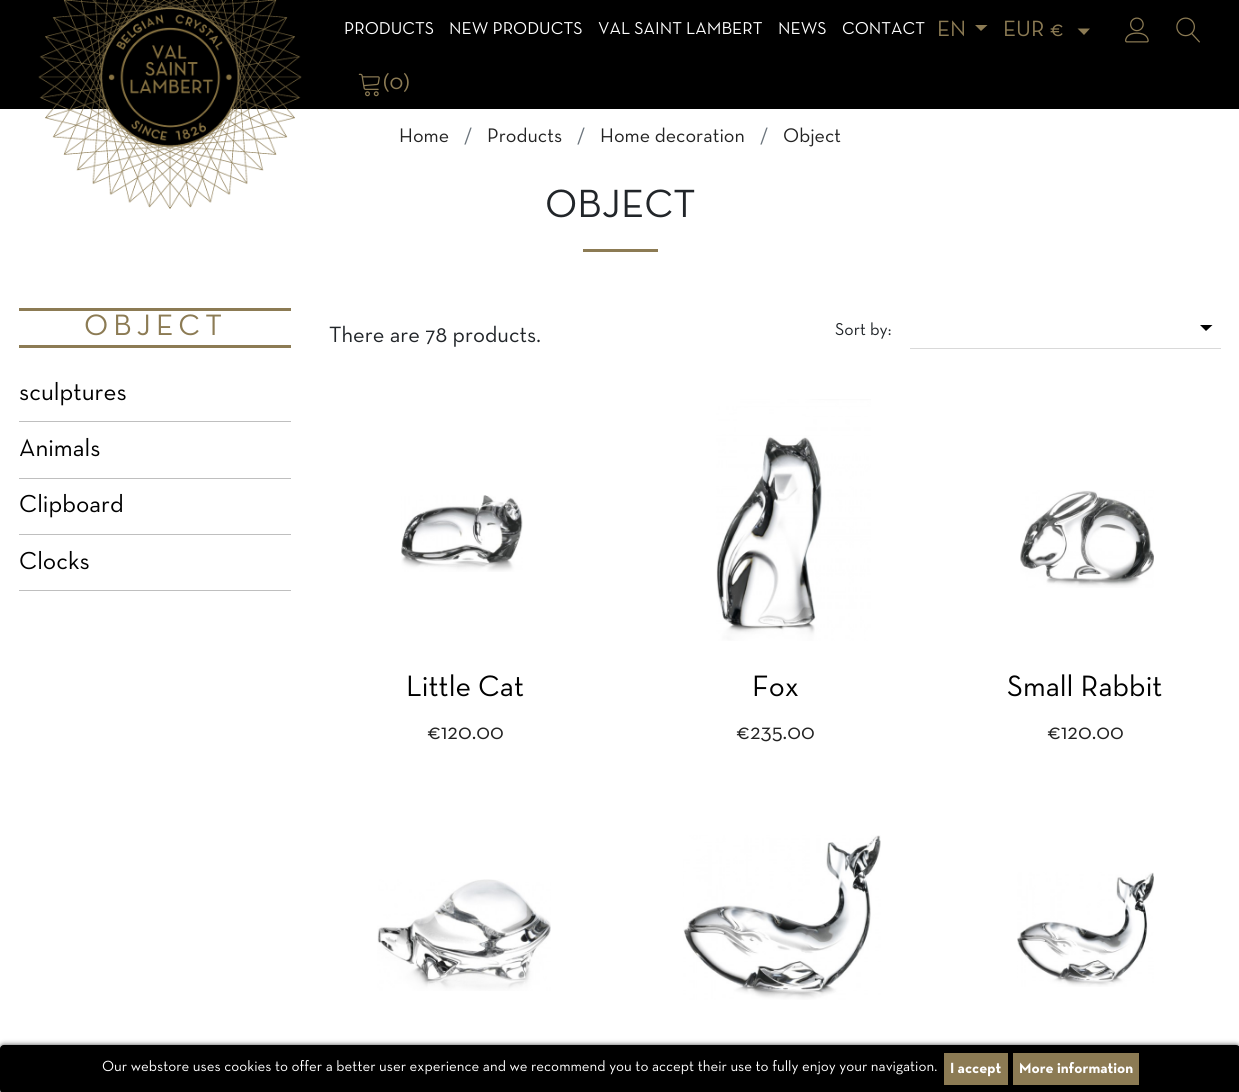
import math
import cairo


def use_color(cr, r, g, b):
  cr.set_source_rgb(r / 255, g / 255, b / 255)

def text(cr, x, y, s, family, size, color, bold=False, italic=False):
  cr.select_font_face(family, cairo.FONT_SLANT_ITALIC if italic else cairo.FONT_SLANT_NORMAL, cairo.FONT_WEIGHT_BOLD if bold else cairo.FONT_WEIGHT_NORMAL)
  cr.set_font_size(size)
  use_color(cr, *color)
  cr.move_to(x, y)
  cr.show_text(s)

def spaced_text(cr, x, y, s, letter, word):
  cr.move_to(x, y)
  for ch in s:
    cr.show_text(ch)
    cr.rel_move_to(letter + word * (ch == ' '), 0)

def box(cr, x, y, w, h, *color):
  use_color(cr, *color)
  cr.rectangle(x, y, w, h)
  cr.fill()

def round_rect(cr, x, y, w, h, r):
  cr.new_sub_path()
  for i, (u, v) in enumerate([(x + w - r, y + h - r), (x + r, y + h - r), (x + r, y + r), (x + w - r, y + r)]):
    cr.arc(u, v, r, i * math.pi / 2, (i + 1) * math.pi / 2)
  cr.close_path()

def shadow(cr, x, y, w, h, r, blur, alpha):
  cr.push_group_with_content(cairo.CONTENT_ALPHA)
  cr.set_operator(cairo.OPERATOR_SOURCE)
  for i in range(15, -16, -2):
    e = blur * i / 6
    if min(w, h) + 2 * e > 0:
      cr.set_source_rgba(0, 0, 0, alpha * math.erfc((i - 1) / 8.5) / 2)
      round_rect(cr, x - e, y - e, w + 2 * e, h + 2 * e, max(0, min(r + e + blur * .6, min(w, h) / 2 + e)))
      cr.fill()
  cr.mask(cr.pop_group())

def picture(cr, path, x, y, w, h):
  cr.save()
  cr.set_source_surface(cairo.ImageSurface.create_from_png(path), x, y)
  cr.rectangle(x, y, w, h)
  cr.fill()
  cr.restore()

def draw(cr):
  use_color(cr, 255, 255, 255)
  cr.paint()
  box(cr, 0, 0, 1239, 109, 0, 0, 0)
  picture(cr, "img_01.png", 38, 0, 264, 209)
  use_color(cr, 140, 123, 84)
  cr.new_path()
  cr.move_to(975, 25)
  cr.line_to(987.5, 25)
  cr.line_to(981, 31)
  cr.close_path()
  cr.fill()
  cr.new_path()
  cr.move_to(1077.5, 28.5)
  cr.line_to(1090, 28.5)
  cr.line_to(1084, 35)
  cr.close_path()
  cr.fill()
  picture(cr, "img_02.png", 1125, 17, 24, 26)
  picture(cr, "img_03.png", 1176, 17, 24, 26)
  picture(cr, "img_04.png", 358, 73, 22, 24)
  use_color(cr, 0, 0, 0)
  shadow(cr, 0, 1046, 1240, 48, 4, 3, 1)
  use_color(cr, 0, 0, 0)
  round_rect(cr, 0.5, 1045.5, 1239, 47, 3.5)
  cr.fill_preserve()
  cr.set_line_width(1)
  cr.stroke()
  box(cr, 944, 1053, 64, 32, 140, 123, 84)
  box(cr, 1013, 1053, 126, 32, 140, 123, 84)
  box(cr, 583, 249, 75, 3, 140, 123, 84)
  box(cr, 19, 308, 272, 3, 140, 123, 84)
  box(cr, 19, 345, 272, 3, 140, 123, 84)
  box(cr, 19, 421, 272, 1, 191, 191, 191)
  box(cr, 19, 478, 272, 1, 191, 191, 191)
  box(cr, 19, 534, 272, 1, 191, 191, 191)
  box(cr, 19, 590, 272, 1, 191, 191, 191)
  box(cr, 910, 348, 311, 1, 217, 217, 217)
  use_color(cr, 0, 0, 0)
  cr.new_path()
  cr.move_to(1200, 325)
  cr.line_to(1212.5, 325)
  cr.line_to(1206, 331)
  cr.close_path()
  cr.fill()
  picture(cr, "img_05.png", 401, 495, 122, 77)
  picture(cr, "img_06.png", 716, 399, 155, 242)
  picture(cr, "img_07.png", 1020, 490, 134, 98)
  picture(cr, "img_08.png", 377, 879, 174, 112)
  picture(cr, "img_09.png", 683, 835, 198, 165)
  picture(cr, "img_10.png", 1017, 872, 137, 115)
  text(cr, 344, 34, "PRODUCTS", "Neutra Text", 17.5, (255, 255, 255))
  text(cr, 449, 34, "NEW PRODUCTS", "Neutra Text", 17.5, (255, 255, 255))
  text(cr, 598, 34, "VAL SAINT LAMBERT", "Neutra Text", 17.5, (255, 255, 255))
  text(cr, 778, 34, "NEWS", "Neutra Text", 17.5, (255, 255, 255))
  text(cr, 842, 34, "CONTACT", "Neutra Text", 17.5, (255, 255, 255))
  text(cr, 937, 36, "EN", "Neutra Text", 22.5, (140, 123, 84))
  text(cr, 1003, 36, "EUR €", "Neutra Text", 22.5, (140, 123, 84))
  text(cr, 383, 89, "(0)", "Neutra Text", 22.5, (140, 123, 84))
  text(cr, 102, 1071, "Our webstore uses cookies to offer a better user experience and we recommend you to accept their use to fully enjoy your navigation.", "Neutra Text", 15, (255, 255, 255))
  text(cr, 950, 1073, "I accept", "Neutra Text", 15, (255, 255, 255), bold=True)
  text(cr, 1019, 1073, "More information", "Neutra Text", 15, (255, 255, 255), bold=True)
  text(cr, 399, 142, "Home", "Neutra Text", 20, (35, 35, 35))
  text(cr, 464, 142, "/", "Neutra Text", 20, (108, 117, 125))
  text(cr, 487, 142, "Products", "Neutra Text", 20, (35, 35, 35))
  text(cr, 577, 142, "/", "Neutra Text", 20, (108, 117, 125))
  text(cr, 600, 142, "Home decoration", "Neutra Text", 20, (35, 35, 35))
  text(cr, 760, 142, "/", "Neutra Text", 20, (108, 117, 125))
  text(cr, 783, 142, "Object", "Neutra Text", 20, (35, 35, 35))
  text(cr, 545, 217, "OBJECT", "Neutra Text", 40, (33, 37, 41))
  cr.set_font_size(30)
  use_color(cr, 140, 123, 84)
  spaced_text(cr, 84, 335, "OBJECT", 5, 0)
  text(cr, 19, 400, "sculptures", "Neutra Text", 25, (0, 0, 0))
  text(cr, 19, 456, "Animals", "Neutra Text", 25, (0, 0, 0))
  text(cr, 19, 512, "Clipboard", "Neutra Text", 25, (0, 0, 0))
  text(cr, 19, 569, "Clocks", "Neutra Text", 25, (0, 0, 0))
  text(cr, 329, 342, "There are 78 products.", "Neutra Text", 22.5, (33, 37, 41))
  text(cr, 835, 335, "Sort by:", "Neutra Text", 17.5, (33, 37, 41))
  text(cr, 406, 696, "Little Cat", "Neutra Text", 30, (0, 0, 0))
  text(cr, 427, 739, "€120.00", "Neutra Text", 22.5, (35, 35, 35))
  text(cr, 752, 696, "Fox", "Neutra Text", 30, (0, 0, 0))
  text(cr, 736, 739, "€235.00", "Neutra Text", 22.5, (35, 35, 35))
  text(cr, 1007, 696, "Small Rabbit", "Neutra Text", 30, (0, 0, 0))
  text(cr, 1047, 739, "€120.00", "Neutra Text", 22.5, (35, 35, 35))


surface = cairo.ImageSurface(cairo.FORMAT_RGB24, 1239, 1092)
cr = cairo.Context(surface)
options = cairo.FontOptions()
options.set_hint_metrics(cairo.HINT_METRICS_OFF)
options.set_hint_style(cairo.HINT_STYLE_NONE)
cr.set_font_options(options)
cr.set_miter_limit(4)
draw(cr)
surface.write_to_png("out.png")
